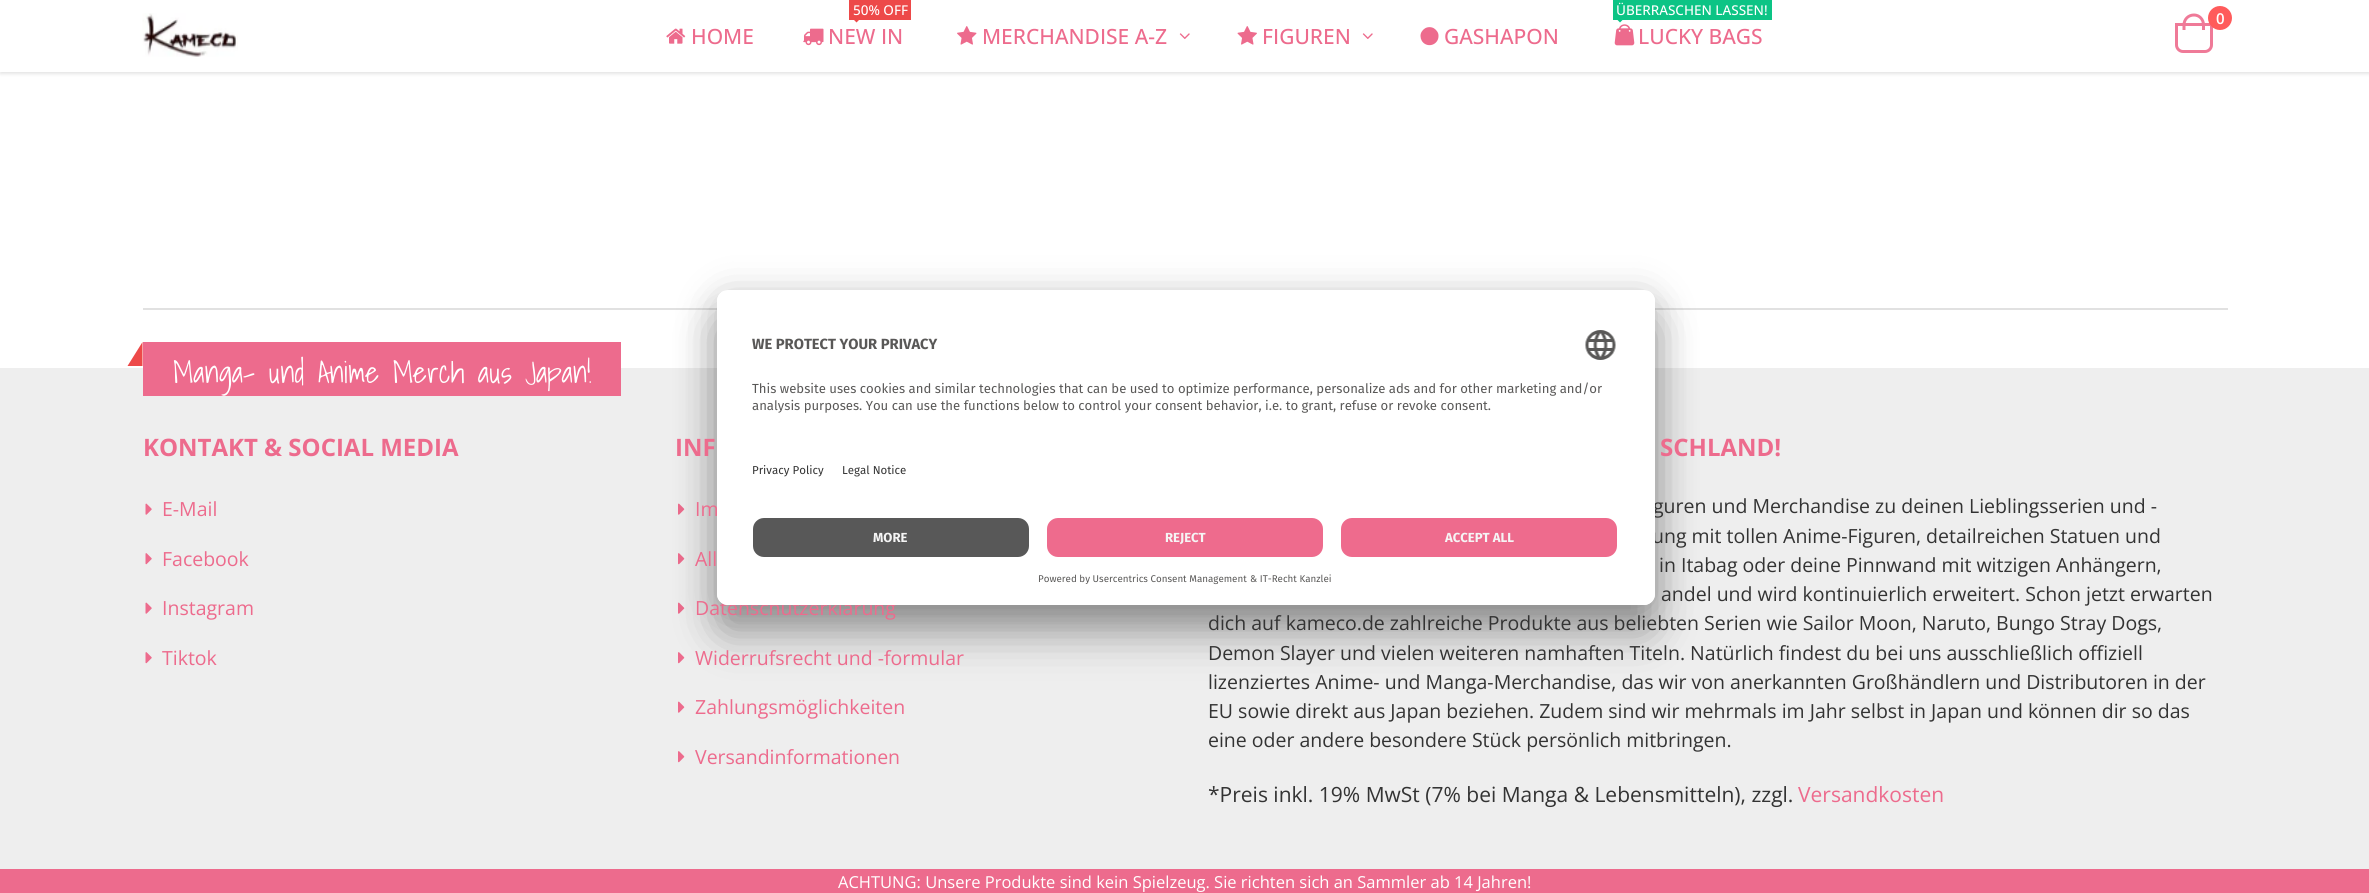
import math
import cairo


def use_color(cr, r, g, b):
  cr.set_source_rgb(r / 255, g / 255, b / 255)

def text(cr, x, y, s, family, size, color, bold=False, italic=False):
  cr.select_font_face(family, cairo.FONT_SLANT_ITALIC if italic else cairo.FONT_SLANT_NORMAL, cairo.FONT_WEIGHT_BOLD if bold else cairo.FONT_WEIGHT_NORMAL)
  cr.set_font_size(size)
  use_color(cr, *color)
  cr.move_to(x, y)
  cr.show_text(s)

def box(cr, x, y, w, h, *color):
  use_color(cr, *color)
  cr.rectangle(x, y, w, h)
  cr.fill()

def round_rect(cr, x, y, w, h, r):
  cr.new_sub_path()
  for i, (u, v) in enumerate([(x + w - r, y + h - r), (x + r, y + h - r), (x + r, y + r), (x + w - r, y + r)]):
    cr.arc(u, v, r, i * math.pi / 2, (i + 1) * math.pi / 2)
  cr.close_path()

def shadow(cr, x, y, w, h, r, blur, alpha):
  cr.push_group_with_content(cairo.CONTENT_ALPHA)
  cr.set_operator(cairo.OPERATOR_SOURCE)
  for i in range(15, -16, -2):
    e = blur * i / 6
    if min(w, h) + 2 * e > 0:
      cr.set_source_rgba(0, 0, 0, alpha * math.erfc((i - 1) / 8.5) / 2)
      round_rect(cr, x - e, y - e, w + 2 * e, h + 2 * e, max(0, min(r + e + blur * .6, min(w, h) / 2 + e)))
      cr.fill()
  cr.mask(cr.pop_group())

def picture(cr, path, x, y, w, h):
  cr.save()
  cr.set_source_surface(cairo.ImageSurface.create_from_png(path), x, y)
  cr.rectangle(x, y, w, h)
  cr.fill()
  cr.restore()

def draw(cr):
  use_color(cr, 255, 255, 255)
  cr.paint()
  use_color(cr, 0, 0, 0)
  shadow(cr, 0, 2, 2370, 72, 0, 1.5, 0.1)
  box(cr, 0, 0, 2369, 72, 255, 255, 255)
  picture(cr, "img_01.png", 142, 13, 96, 44)
  picture(cr, "img_02.png", 666, 28, 20, 16)
  picture(cr, "img_03.png", 803, 28, 21, 18)
  box(cr, 849, 0, 62, 20, 237, 73, 73)
  cr.new_path()
  cr.move_to(853.5, 19.5)
  cr.line_to(859.5, 19.5)
  cr.line_to(856.5, 22.5)
  cr.close_path()
  cr.fill()
  picture(cr, "img_04.png", 957, 26, 20, 19)
  picture(cr, "img_05.png", 1179, 33, 11, 6)
  picture(cr, "img_06.png", 1237, 26, 20, 19)
  picture(cr, "img_05.png", 1362, 33, 11, 6)
  picture(cr, "img_07.png", 1420, 27, 19, 19)
  box(cr, 1613, 0, 159, 20, 12, 196, 133)
  cr.new_path()
  cr.move_to(1617, 19.5)
  cr.line_to(1623, 19.5)
  cr.line_to(1620, 22.5)
  cr.close_path()
  cr.fill()
  picture(cr, "img_08.png", 1614, 24, 21, 22)
  cr.new_path()
  cr.move_to(2176.5, 24.5)
  cr.line_to(2211.5, 24.5)
  cr.line_to(2211.5, 45)
  cr.curve_to(2211.5, 48.5, 2208.5, 51.5, 2205, 51.5)
  cr.line_to(2183, 51.5)
  cr.curve_to(2179.5, 51.5, 2176.5, 48.5, 2176.5, 45)
  cr.close_path()
  use_color(cr, 239, 122, 152)
  cr.set_line_width(3)
  cr.stroke()
  cr.set_fill_rule(cairo.FILL_RULE_EVEN_ODD)
  cr.new_path()
  cr.move_to(2194, 13.5)
  cr.curve_to(2200, 13.5, 2205, 18.5, 2205, 25)
  cr.line_to(2205, 30)
  cr.line_to(2182.5, 30)
  cr.line_to(2182.5, 25)
  cr.curve_to(2182.5, 18.5, 2187.5, 13.5, 2194, 13.5)
  cr.close_path()
  cr.move_to(2194, 16.5)
  cr.curve_to(2198.5, 16.5, 2202, 20, 2202, 25)
  cr.line_to(2202, 30)
  cr.line_to(2185.5, 30)
  cr.line_to(2185.5, 25)
  cr.curve_to(2185.5, 20, 2189, 16.5, 2194, 16.5)
  cr.close_path()
  cr.fill()
  use_color(cr, 255, 91, 91)
  cr.arc(2220, 18, 12, 0, 2 * math.pi)
  cr.fill()
  box(cr, 143, 308, 2085, 2, 225, 225, 225)
  box(cr, 0, 368, 2369, 501, 238, 238, 238)
  box(cr, 143, 342, 478, 54, 237, 107, 141)
  use_color(cr, 237, 73, 73)
  cr.set_fill_rule(cairo.FILL_RULE_WINDING)
  cr.new_path()
  cr.move_to(142.5, 342)
  cr.line_to(142.5, 366)
  cr.line_to(127.5, 366)
  cr.close_path()
  cr.fill()
  picture(cr, "img_09.png", 145, 503, 7, 12)
  picture(cr, "img_10.png", 145, 553, 7, 12)
  picture(cr, "img_09.png", 145, 602, 7, 12)
  picture(cr, "img_10.png", 145, 652, 7, 12)
  picture(cr, "img_11.png", 678, 503, 7, 12)
  picture(cr, "img_12.png", 678, 553, 7, 12)
  picture(cr, "img_11.png", 678, 602, 7, 12)
  picture(cr, "img_12.png", 678, 652, 7, 12)
  picture(cr, "img_11.png", 678, 701, 7, 12)
  picture(cr, "img_12.png", 678, 751, 7, 12)
  use_color(cr, 0, 0, 0)
  shadow(cr, 717, 320, 938, 315, 11, 21, 0.3)
  shadow(cr, 717, 297, 938, 315, 11, 19.5, 0.22)
  box(cr, 0, 869, 2369, 24, 237, 107, 141)
  text(cr, 691, 44, "HOME", "Open Sans Medium", 21, (237, 107, 141))
  text(cr, 853, 15, "50% OFF", "Open Sans Medium", 13.5, (255, 255, 255))
  text(cr, 828, 44, "NEW IN", "Open Sans Medium", 21, (237, 107, 141))
  text(cr, 982, 44, "MERCHANDISE A-Z", "Open Sans Medium", 21, (237, 107, 141))
  text(cr, 1262, 44, "FIGUREN", "Open Sans Medium", 21, (237, 107, 141))
  text(cr, 1444, 44, "GASHAPON", "Open Sans Medium", 21, (237, 107, 141))
  text(cr, 1616, 15, "ÜBERRASCHEN LASSEN!", "Open Sans Medium", 13.5, (255, 255, 255))
  text(cr, 1638, 44, "LUCKY BAGS", "Open Sans Medium", 21, (237, 107, 141))
  text(cr, 2216, 24, "0", "Open Sans SemiBold", 15, (255, 255, 255))
  text(cr, 173, 383, "Manga- und Anime Merch aus Japan!", "Shadows Into Light Light", 30, (255, 255, 255))
  text(cr, 143, 456, "KONTAKT & SOCIAL MEDIA", "Open Sans", 24, (237, 107, 141), bold=True)
  text(cr, 162, 516, "E-Mail", "Open Sans", 19.5, (237, 107, 141))
  text(cr, 162, 566, "Facebook", "Open Sans", 19.5, (237, 107, 141))
  text(cr, 162, 615, "Instagram", "Open Sans", 19.5, (237, 107, 141))
  text(cr, 162, 665, "Tiktok", "Open Sans", 19.5, (237, 107, 141))
  text(cr, 675, 456, "INF", "Open Sans", 24, (237, 107, 141), bold=True)
  text(cr, 695, 516, "Im", "Open Sans", 19.5, (237, 107, 141))
  text(cr, 695, 566, "All", "Open Sans", 19.5, (237, 107, 141))
  text(cr, 695, 615, "Datenschutzerklärung", "Open Sans", 19.5, (237, 107, 141))
  text(cr, 695, 665, "Widerrufsrecht und -formular", "Open Sans", 19.5, (237, 107, 141))
  text(cr, 695, 714, "Zahlungsmöglichkeiten", "Open Sans", 19.5, (237, 107, 141))
  text(cr, 695, 764, "Versandinformationen", "Open Sans", 19.5, (237, 107, 141))
  text(cr, 1660, 456, "SCHLAND!", "Open Sans", 24, (237, 107, 141), bold=True)
  text(cr, 1653, 513, "guren und Merchandise zu deinen Lieblingsserien und -", "Open Sans", 19.5, (51, 51, 51))
  text(cr, 1652, 543, "ung mit tollen Anime-Figuren, detailreichen Statuen und", "Open Sans", 19.5, (51, 51, 51))
  text(cr, 1659, 572, "in Itabag oder deine Pinnwand mit witzigen Anhängern,", "Open Sans", 19.5, (51, 51, 51))
  text(cr, 1661, 601, "andel und wird kontinuierlich erweitert. Schon jetzt erwarten", "Open Sans", 19.5, (51, 51, 51))
  text(cr, 1208, 630, "dich auf kameco.de zahlreiche Produkte aus beliebten Serien wie Sailor Moon, Naruto, Bungo Stray Dogs,", "Open Sans", 19.5, (51, 51, 51))
  text(cr, 1208, 660, "Demon Slayer und vielen weiteren namhaften Titeln. Natürlich findest du bei uns ausschließlich offiziell", "Open Sans", 19.5, (51, 51, 51))
  text(cr, 1208, 689, "lizenziertes Anime- und Manga-Merchandise, das wir von anerkannten Großhändlern und Distributoren in der", "Open Sans", 19.5, (51, 51, 51))
  text(cr, 1208, 718, "EU sowie direkt aus Japan beziehen. Zudem sind wir mehrmals im Jahr selbst in Japan und können dir so das", "Open Sans", 19.5, (51, 51, 51))
  text(cr, 1208, 747, "eine oder andere besondere Stück persönlich mitbringen.", "Open Sans", 19.5, (51, 51, 51))
  text(cr, 1208, 802, "*Preis inkl. 19% MwSt (7% bei Manga & Lebensmitteln), zzgl.", "Open Sans", 21, (51, 51, 51))
  text(cr, 1798, 802, "Versandkosten", "Open Sans", 21, (237, 107, 141))
  use_color(cr, 255, 255, 255)
  round_rect(cr, 717, 290, 938, 315, 11)
  cr.fill()
  cr.save()
  round_rect(cr, 717, 290, 938, 315, 11)
  cr.clip()
  cr.new_path()
  cr.move_to(728, 290)
  cr.line_to(1644, 290)
  cr.curve_to(1650, 290, 1655, 295, 1655, 301)
  cr.line_to(1655, 506)
  cr.line_to(717, 506)
  cr.line_to(717, 301)
  cr.curve_to(717, 295, 722, 290, 728, 290)
  cr.close_path()
  cr.clip()
  box(cr, 717, 291, 938, 215, 255, 255, 255)
  cr.restore()
  text(cr, 752, 349, "WE PROTECT YOUR PRIVACY", "Fira Sans", 14.75, (89, 88, 87), bold=True)
  picture(cr, "img_13.png", 1585, 330, 31, 30)
  text(cr, 752, 393, "This website uses cookies and similar technologies that can be used to optimize performance, personalize ads and for other marketing and/or", "Fira Sans", 13.12, (89, 88, 87))
  text(cr, 752, 410, "analysis purposes. You can use the functions below to control your consent behavior, i.e. to grant, refuse or revoke consent.", "Fira Sans", 13.12, (89, 88, 87))
  text(cr, 752, 474, "Privacy Policy", "Fira Sans", 11.5, (51, 51, 51))
  text(cr, 842, 474, "Legal Notice", "Fira Sans", 11.5, (51, 51, 51))
  use_color(cr, 255, 255, 255)
  cr.new_path()
  cr.move_to(717, 506)
  cr.line_to(1655, 506)
  cr.line_to(1655, 594)
  cr.curve_to(1655, 600, 1650, 605, 1644, 605)
  cr.line_to(728, 605)
  cr.curve_to(722, 605, 717, 600, 717, 594)
  cr.close_path()
  cr.fill()
  use_color(cr, 88, 88, 88)
  round_rect(cr, 753, 518, 276, 39, 11)
  cr.fill()
  text(cr, 873, 542, "MORE", "Fira Sans", 13.12, (245, 245, 245), bold=True)
  use_color(cr, 238, 107, 141)
  round_rect(cr, 1047, 518, 276, 39, 11)
  cr.fill()
  text(cr, 1165, 542, "REJECT", "Fira Sans", 13.12, (245, 245, 245), bold=True)
  use_color(cr, 238, 107, 141)
  round_rect(cr, 1341, 518, 276, 39, 11)
  cr.fill()
  text(cr, 1445, 542, "ACCEPT ALL", "Fira Sans", 13.12, (245, 245, 245), bold=True)
  text(cr, 1038, 582, "Powered by Usercentrics Consent Management", "Fira Sans", 9.8, (89, 88, 87))
  text(cr, 1250, 582, "& IT-Recht Kanzlei", "Fira Sans", 9.8, (89, 88, 87))
  text(cr, 838, 888, "ACHTUNG: Unsere Produkte sind kein Spielzeug. Sie richten sich an Sammler ab 14 Jahren!", "Open Sans", 16.5, (255, 255, 255))


surface = cairo.ImageSurface(cairo.FORMAT_RGB24, 2369, 893)
cr = cairo.Context(surface)
options = cairo.FontOptions()
options.set_hint_metrics(cairo.HINT_METRICS_OFF)
options.set_hint_style(cairo.HINT_STYLE_NONE)
cr.set_font_options(options)
cr.set_miter_limit(4)
draw(cr)
surface.write_to_png("out.png")
